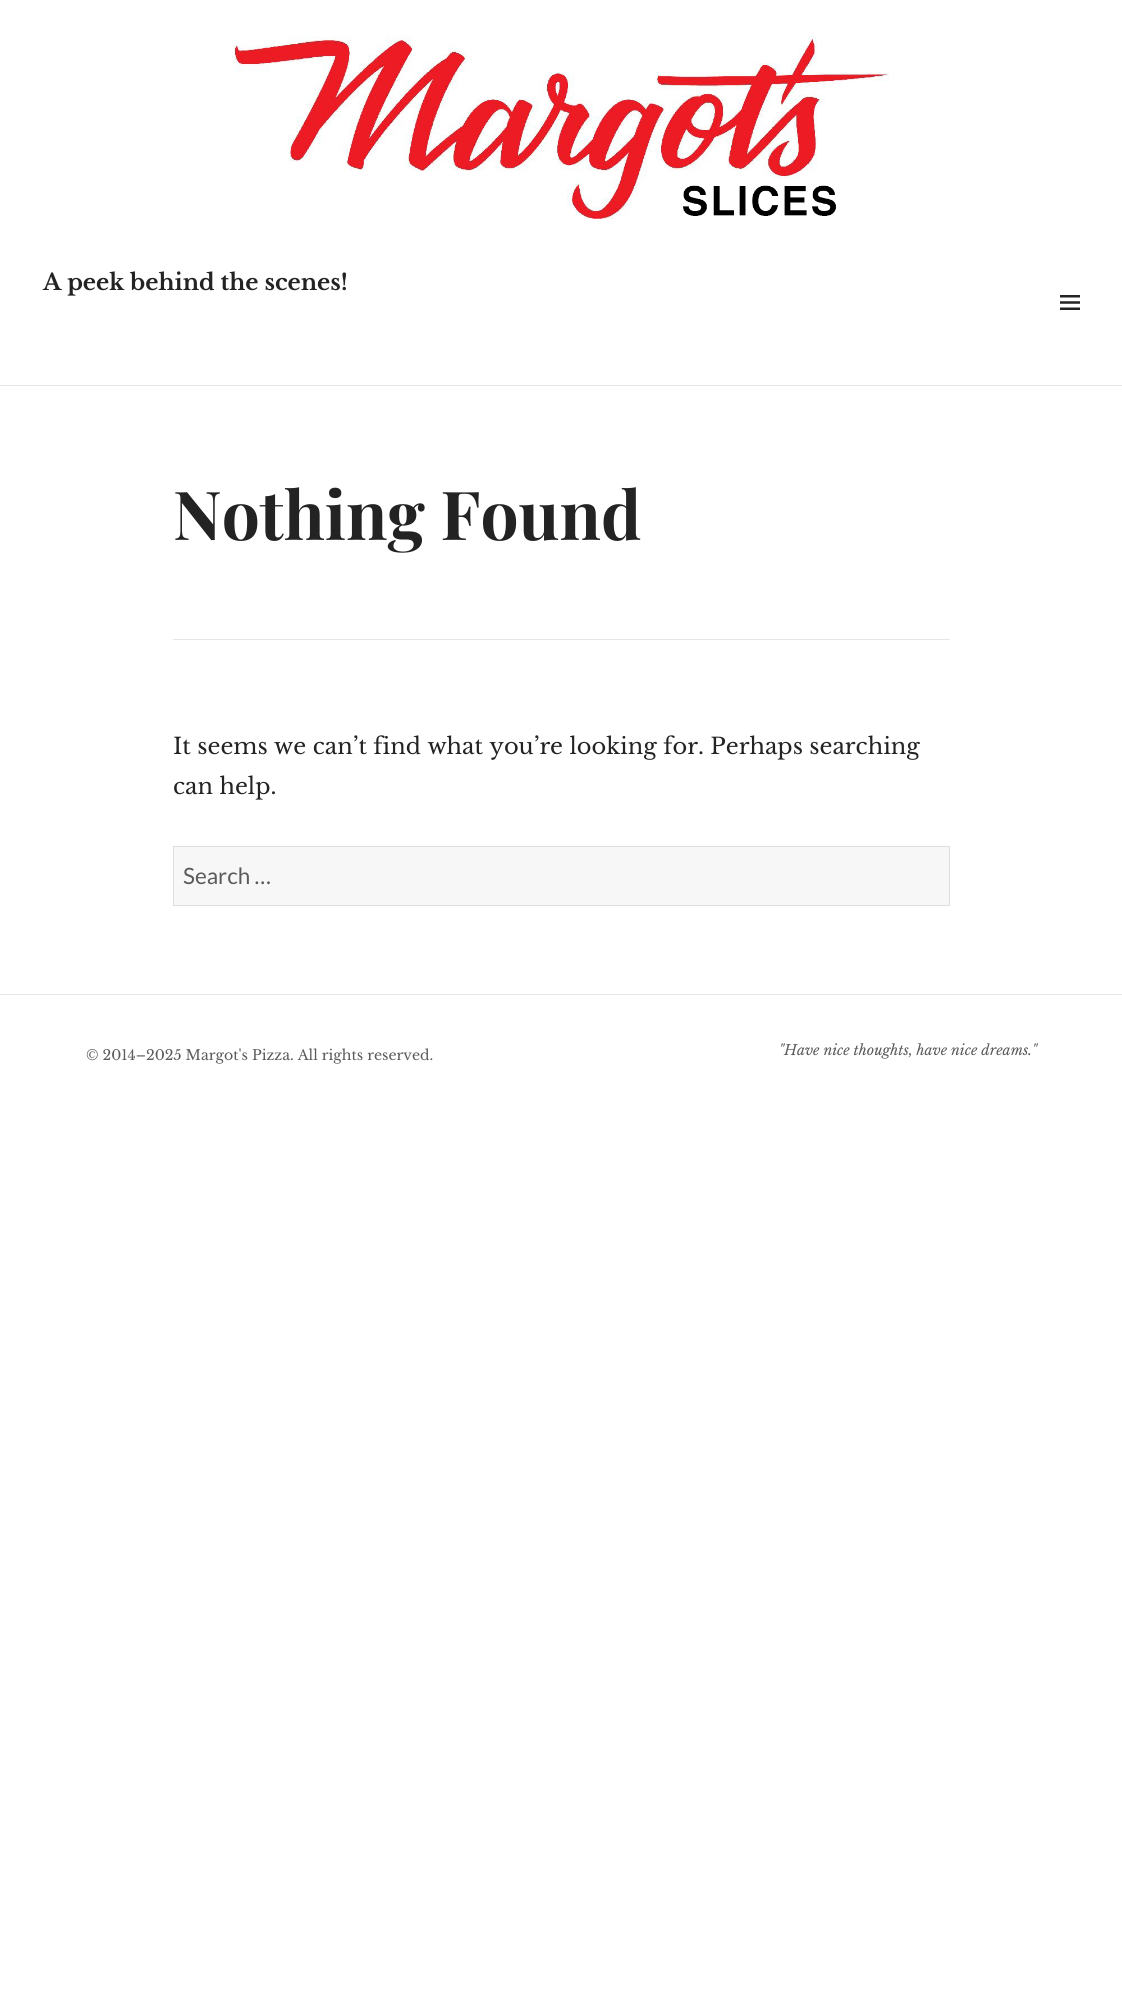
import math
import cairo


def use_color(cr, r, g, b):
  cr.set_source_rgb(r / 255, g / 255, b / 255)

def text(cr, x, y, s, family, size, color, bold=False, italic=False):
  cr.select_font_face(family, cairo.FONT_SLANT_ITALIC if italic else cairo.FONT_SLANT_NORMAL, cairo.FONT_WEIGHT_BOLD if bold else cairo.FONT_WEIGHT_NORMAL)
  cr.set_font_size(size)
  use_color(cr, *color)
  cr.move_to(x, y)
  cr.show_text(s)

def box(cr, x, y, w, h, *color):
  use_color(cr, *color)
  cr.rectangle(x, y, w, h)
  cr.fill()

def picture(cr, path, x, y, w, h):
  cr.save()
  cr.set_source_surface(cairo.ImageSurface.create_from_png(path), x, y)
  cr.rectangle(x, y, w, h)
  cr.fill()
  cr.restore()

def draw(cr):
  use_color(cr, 255, 255, 255)
  cr.paint()
  picture(cr, "img_01.png", 233, 36, 656, 183)
  box(cr, 0, 385, 1122, 1, 230, 230, 230)
  picture(cr, "img_02.png", 1060, 295, 20, 15)
  box(cr, 173, 639, 777, 1, 230, 230, 230)
  use_color(cr, 247, 247, 247)
  cr.rectangle(173.5, 846.5, 776, 59)
  cr.fill_preserve()
  use_color(cr, 222, 222, 222)
  cr.set_line_width(1)
  cr.stroke()
  box(cr, 0, 994, 1122, 1, 230, 230, 230)
  text(cr, 43, 290, "A peek behind the scenes!", "Libre Baskerville", 22.5, (35, 35, 35), bold=True)
  text(cr, 173, 540, "Nothing Found", "Playfair Display", 67.5, (35, 35, 35), bold=True)
  text(cr, 173, 754, "It seems we can’t find what you’re looking for. Perhaps searching", "Libre Baskerville", 22.5, (35, 35, 35))
  text(cr, 173, 794, "can help.", "Libre Baskerville", 22.5, (35, 35, 35))
  text(cr, 183, 884, "Search …", "Lato", 22.5, (91, 91, 91))
  text(cr, 86, 1060, "© 2014–2025 Margot's Pizza. All rights reserved.", "Libre Baskerville", 14.1, (91, 91, 91))
  text(cr, 779, 1055, "\"Have nice thoughts, have nice dreams.\"", "Libre Baskerville", 14.1, (91, 91, 91), italic=True)


surface = cairo.ImageSurface(cairo.FORMAT_RGB24, 1122, 2011)
cr = cairo.Context(surface)
options = cairo.FontOptions()
options.set_hint_metrics(cairo.HINT_METRICS_OFF)
options.set_hint_style(cairo.HINT_STYLE_NONE)
cr.set_font_options(options)
cr.set_miter_limit(4)
draw(cr)
surface.write_to_png("out.png")
